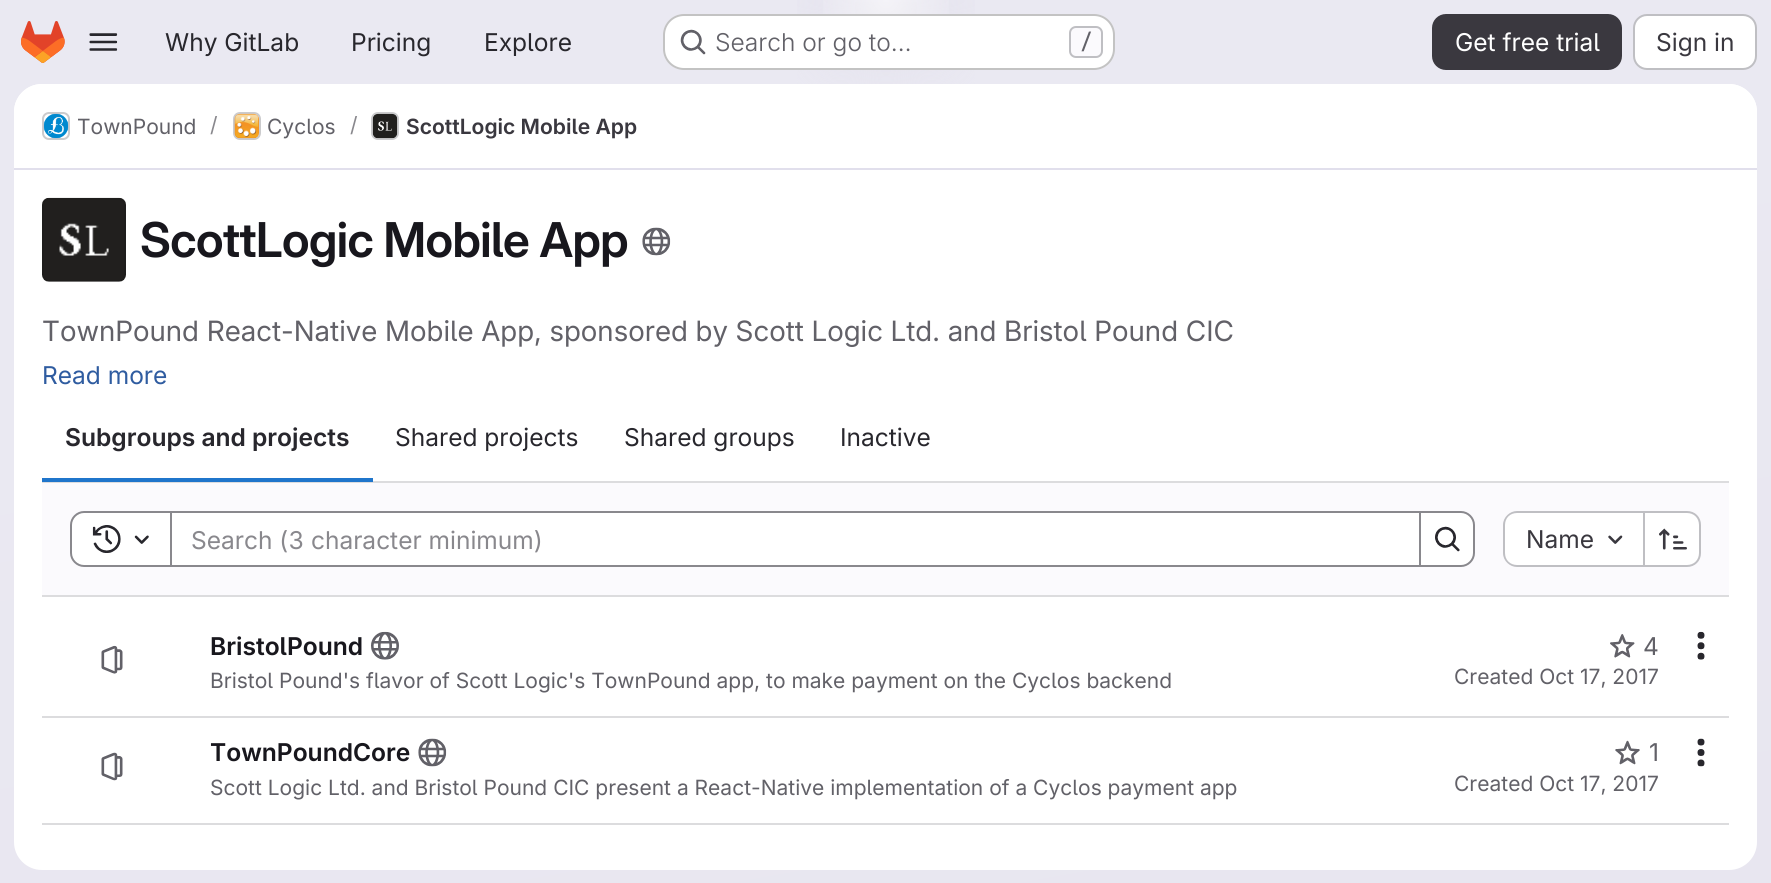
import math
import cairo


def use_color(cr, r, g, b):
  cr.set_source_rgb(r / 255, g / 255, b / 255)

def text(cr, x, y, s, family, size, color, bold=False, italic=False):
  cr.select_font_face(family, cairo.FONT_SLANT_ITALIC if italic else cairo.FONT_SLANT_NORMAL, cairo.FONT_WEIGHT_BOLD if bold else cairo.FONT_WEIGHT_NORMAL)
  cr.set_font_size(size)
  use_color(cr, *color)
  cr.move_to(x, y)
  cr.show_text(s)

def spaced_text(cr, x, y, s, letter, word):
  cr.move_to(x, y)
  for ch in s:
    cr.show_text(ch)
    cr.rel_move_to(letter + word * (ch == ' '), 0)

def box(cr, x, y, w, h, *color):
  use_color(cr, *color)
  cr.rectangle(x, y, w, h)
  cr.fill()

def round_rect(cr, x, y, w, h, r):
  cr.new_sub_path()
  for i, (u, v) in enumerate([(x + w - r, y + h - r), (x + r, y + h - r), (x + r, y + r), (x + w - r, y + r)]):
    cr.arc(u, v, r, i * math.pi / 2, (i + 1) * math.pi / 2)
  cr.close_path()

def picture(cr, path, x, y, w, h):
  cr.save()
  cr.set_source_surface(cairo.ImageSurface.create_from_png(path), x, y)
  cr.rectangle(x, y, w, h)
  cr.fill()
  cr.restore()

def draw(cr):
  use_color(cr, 255, 255, 255)
  cr.paint()
  gradient = cairo.LinearGradient(988, 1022, 783, -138)
  gradient.add_color_stop_rgba(0, 0.91, 0.902, 0.941, 1)
  gradient.add_color_stop_rgba(0.7, 0.918, 0.914, 0.949, 1)
  cr.set_source(gradient)
  cr.rectangle(0, 0, 1771, 883)
  cr.fill()
  gradient = cairo.RadialGradient(0, 0, 0, 0, 0, 1)
  gradient.set_matrix(cairo.Matrix(1 / 886, 0, 0, 1 / 884, -1 * 886 / 886, -1 * 0 / 884))
  gradient.add_color_stop_rgba(0, 0.894, 0.886, 0.929, 1)
  gradient.add_color_stop_rgba(0.14, 0.894, 0.886, 0.929, 0)
  cr.set_source(gradient)
  cr.rectangle(797, 0, 178, 84)
  cr.fill()
  gradient = cairo.RadialGradient(0, 0, 0, 0, 0, 1)
  gradient.set_matrix(cairo.Matrix(1 / 886, 0, 0, 1 / 884, -1 * 886 / 886, -1 * 0 / 884))
  gradient.add_color_stop_rgba(0, 0.894, 0.886, 0.925, 1)
  gradient.add_color_stop_rgba(0.1, 0.894, 0.886, 0.925, 0)
  cr.set_source(gradient)
  cr.rectangle(855, 2, 62, 29)
  cr.fill()
  gradient = cairo.RadialGradient(886, 0, 0, 886, 0, 1251)
  gradient.add_color_stop_rgba(0, 1, 1, 1, 0.6)
  gradient.add_color_stop_rgba(0.06, 1, 1, 1, 0)
  cr.set_source(gradient)
  cr.rectangle(823, 0, 126, 14)
  cr.fill()
  picture(cr, "img_01.png", 21, 21, 44, 42)
  picture(cr, "img_02.png", 89, 33, 29, 18)
  use_color(cr, 255, 255, 255)
  round_rect(cr, 663, 14, 452, 56, 21)
  cr.fill()
  round_rect(cr, 664, 15, 450, 54, 20)
  cr.set_source_rgba(0.02, 0.02, 0.024, 0.24)
  cr.stroke()
  picture(cr, "img_03.png", 680, 29, 26, 26)
  use_color(cr, 251, 250, 253)
  round_rect(cr, 1070, 27, 32, 30, 6)
  cr.fill_preserve()
  use_color(cr, 191, 191, 195)
  cr.stroke()
  use_color(cr, 58, 56, 63)
  round_rect(cr, 1433, 15, 188, 54, 13)
  cr.fill_preserve()
  cr.stroke()
  use_color(cr, 255, 255, 255)
  round_rect(cr, 1634, 15, 122, 54, 13)
  cr.fill_preserve()
  use_color(cr, 191, 191, 195)
  cr.stroke()
  use_color(cr, 255, 255, 255)
  round_rect(cr, 14, 84, 1743, 786, 28)
  cr.fill()
  cr.new_path()
  cr.move_to(42, 84)
  cr.line_to(1729, 84)
  cr.curve_to(1744.5, 84, 1757, 96.5, 1757, 112)
  cr.line_to(1757, 170)
  cr.line_to(14, 170)
  cr.line_to(14, 112)
  cr.curve_to(14, 96.5, 26.5, 84, 42, 84)
  cr.close_path()
  cr.fill()
  box(cr, 14, 168, 1743, 2, 225, 223, 236)
  round_rect(cr, 43, 113, 26, 26, 6)
  use_color(cr, 220, 220, 222)
  cr.stroke()
  picture(cr, "img_04.png", 43, 113, 26, 26)
  round_rect(cr, 43, 113, 26, 26, 6)
  cr.set_source_rgba(0.02, 0.02, 0.024, 0.08)
  cr.stroke()
  round_rect(cr, 234, 113, 26, 26, 6)
  use_color(cr, 220, 220, 222)
  cr.stroke()
  picture(cr, "img_05.png", 234, 113, 25, 26)
  round_rect(cr, 234, 113, 26, 26, 6)
  cr.set_source_rgba(0.02, 0.02, 0.024, 0.08)
  cr.stroke()
  round_rect(cr, 372, 113, 26, 26, 6)
  use_color(cr, 220, 220, 222)
  cr.stroke()
  picture(cr, "img_06.png", 372, 113, 26, 26)
  round_rect(cr, 372, 113, 26, 26, 6)
  cr.set_source_rgba(0.02, 0.02, 0.024, 0.08)
  cr.stroke()
  picture(cr, "img_07.png", 42, 197, 84, 85)
  round_rect(cr, 43, 199, 82, 82, 6)
  cr.stroke()
  picture(cr, "img_08.png", 642, 227, 29, 29)
  box(cr, 42, 595, 1687, 2, 220, 220, 222)
  box(cr, 42, 481, 1687, 2, 220, 220, 222)
  box(cr, 42, 478, 331, 4, 31, 117, 203)
  box(cr, 42, 483, 1687, 112, 251, 250, 253)
  use_color(cr, 255, 255, 255)
  cr.rectangle(171, 512, 1249, 54)
  cr.fill_preserve()
  use_color(cr, 137, 136, 141)
  cr.stroke()
  use_color(cr, 255, 255, 255)
  cr.new_path()
  cr.move_to(84, 512)
  cr.line_to(171, 512)
  cr.line_to(171, 566)
  cr.line_to(84, 566)
  cr.curve_to(77, 566, 71, 560, 71, 553)
  cr.line_to(71, 525)
  cr.curve_to(71, 518, 77, 512, 84, 512)
  cr.close_path()
  cr.fill_preserve()
  use_color(cr, 137, 136, 141)
  cr.stroke()
  picture(cr, "img_09.png", 92, 525, 29, 28)
  picture(cr, "img_10.png", 134, 535, 15, 9)
  use_color(cr, 255, 255, 255)
  cr.new_path()
  cr.move_to(1420, 512)
  cr.line_to(1461, 512)
  cr.curve_to(1468, 512, 1474, 518, 1474, 525)
  cr.line_to(1474, 553)
  cr.curve_to(1474, 560, 1468, 566, 1461, 566)
  cr.line_to(1420, 566)
  cr.close_path()
  cr.fill_preserve()
  use_color(cr, 137, 136, 141)
  cr.stroke()
  picture(cr, "img_11.png", 1435, 526, 25, 26)
  use_color(cr, 255, 255, 255)
  cr.new_path()
  cr.move_to(1517, 513)
  cr.line_to(1643, 513)
  cr.line_to(1643, 565)
  cr.line_to(1517, 565)
  cr.curve_to(1510.5, 565, 1505, 559.5, 1505, 553)
  cr.line_to(1505, 525)
  cr.curve_to(1505, 518.5, 1510.5, 513, 1517, 513)
  cr.close_path()
  cr.fill()
  use_color(cr, 191, 191, 195)
  cr.set_fill_rule(cairo.FILL_RULE_EVEN_ODD)
  cr.new_path()
  cr.move_to(1517, 511)
  cr.line_to(1643, 511)
  cr.line_to(1643, 567)
  cr.line_to(1517, 567)
  cr.curve_to(1510, 567, 1503, 561, 1503, 553)
  cr.line_to(1503, 525)
  cr.curve_to(1503, 517, 1510, 511, 1517, 511)
  cr.close_path()
  cr.move_to(1517, 513)
  cr.line_to(1643, 513)
  cr.line_to(1643, 565)
  cr.line_to(1517, 565)
  cr.curve_to(1510, 565, 1505, 560, 1505, 553)
  cr.line_to(1505, 525)
  cr.curve_to(1505, 518, 1510, 513, 1517, 513)
  cr.close_path()
  cr.fill()
  picture(cr, "img_12.png", 1608, 535, 15, 9)
  use_color(cr, 255, 255, 255)
  cr.new_path()
  cr.move_to(1645, 513)
  cr.line_to(1687, 513)
  cr.curve_to(1693.5, 513, 1699, 518.5, 1699, 525)
  cr.line_to(1699, 553)
  cr.curve_to(1699, 559.5, 1693.5, 565, 1687, 565)
  cr.line_to(1645, 565)
  cr.close_path()
  cr.fill()
  use_color(cr, 191, 191, 195)
  cr.new_path()
  cr.move_to(1645, 511)
  cr.line_to(1687, 511)
  cr.curve_to(1695, 511, 1701, 517, 1701, 525)
  cr.line_to(1701, 553)
  cr.curve_to(1701, 561, 1695, 567, 1687, 567)
  cr.line_to(1645, 567)
  cr.close_path()
  cr.move_to(1645, 513)
  cr.line_to(1687, 513)
  cr.curve_to(1694, 513, 1699, 518, 1699, 525)
  cr.line_to(1699, 553)
  cr.curve_to(1699, 560, 1694, 565, 1687, 565)
  cr.line_to(1645, 565)
  cr.close_path()
  cr.fill()
  box(cr, 1643, 511, 2, 56, 191, 191, 195)
  picture(cr, "img_13.png", 1659, 528, 28, 22)
  box(cr, 42, 716, 1687, 2, 220, 220, 222)
  picture(cr, "img_14.png", 101, 645, 22, 29)
  picture(cr, "img_15.png", 371, 631, 28, 29)
  picture(cr, "img_16.png", 1610, 634, 25, 24)
  picture(cr, "img_17.png", 1697, 631, 8, 29)
  box(cr, 42, 823, 1687, 2, 220, 220, 222)
  picture(cr, "img_18.png", 101, 752, 22, 29)
  picture(cr, "img_19.png", 418, 738, 29, 29)
  picture(cr, "img_20.png", 1615, 740, 25, 25)
  picture(cr, "img_21.png", 1697, 738, 8, 29)
  text(cr, 165, 51, "Why GitLab", "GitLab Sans", 24.5, (40, 39, 45))
  text(cr, 351, 51, "Pricing", "GitLab Sans", 24.5, (40, 39, 45))
  text(cr, 484, 51, "Explore", "GitLab Sans", 24.5, (40, 39, 45))
  text(cr, 715, 51, "Search or go to…", "GitLab Sans Light", 24.5, (98, 97, 104))
  text(cr, 1080, 49, "/", "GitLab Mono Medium", 21, (98, 97, 104))
  text(cr, 1455, 51, "Get free trial", "GitLab Sans", 24.5, (255, 255, 255))
  text(cr, 1656, 51, "Sign in", "GitLab Sans", 24.5, (58, 56, 63))
  text(cr, 77, 134, "TownPound", "GitLab Sans", 21, (98, 97, 104))
  text(cr, 210, 132, "/", "GitLab Sans", 21, (137, 136, 141))
  text(cr, 267, 134, "Cyclos", "GitLab Sans", 21, (98, 97, 104))
  text(cr, 350, 132, "/", "GitLab Sans", 21, (137, 136, 141))
  text(cr, 406, 134, "ScottLogic Mobile App", "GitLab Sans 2 SemiBold", 21, (58, 56, 63))
  cr.select_font_face("GitLab Sans SemiBold")
  cr.set_font_size(48)
  use_color(cr, 24, 23, 29)
  spaced_text(cr, 140, 257, "ScottLogic Mobile App", -0.5, 0)
  text(cr, 42, 341, "TownPound React-Native Mobile App, sponsored by Scott Logic Ltd. and Bristol Pound CIC", "GitLab Sans 2", 28, (98, 97, 104))
  text(cr, 42, 384, "Read more", "GitLab Sans", 24.5, (47, 92, 160))
  text(cr, 65, 446, "Subgroups and projects", "GitLab Sans 2 SemiBold", 24.5, (40, 39, 45))
  text(cr, 395, 446, "Shared projects", "GitLab Sans", 24.5, (40, 39, 45))
  text(cr, 624, 446, "Shared groups", "GitLab Sans", 24.5, (40, 39, 45))
  text(cr, 840, 446, "Inactive", "GitLab Sans", 24.5, (40, 39, 45))
  text(cr, 191, 549, "Search (3 character minimum)", "GitLab Sans", 24.5, (137, 136, 141))
  text(cr, 1526, 548, "Name", "GitLab Sans", 24.5, (58, 56, 63))
  text(cr, 210, 655, "BristolPound", "GitLab Sans 2 SemiBold", 24.5, (24, 23, 29))
  text(cr, 210, 688, "Bristol Pound's flavor of Scott Logic's TownPound app, to make payment on the Cyclos backend", "GitLab Sans", 21, (98, 97, 104))
  text(cr, 1643, 655, "4", "GitLab Sans", 24.5, (98, 97, 104))
  text(cr, 1454, 684, "Created Oct 17, 2017", "GitLab Sans", 21, (98, 97, 104))
  text(cr, 210, 761, "TownPoundCore", "GitLab Sans 2 SemiBold", 24.5, (24, 23, 29))
  text(cr, 210, 795, "Scott Logic Ltd. and Bristol Pound CIC present a React-Native implementation of a Cyclos payment app", "GitLab Sans", 21, (98, 97, 104))
  text(cr, 1649, 761, "1", "GitLab Sans", 24.5, (98, 97, 104))
  text(cr, 1454, 791, "Created Oct 17, 2017", "GitLab Sans", 21, (98, 97, 104))


surface = cairo.ImageSurface(cairo.FORMAT_RGB24, 1771, 883)
cr = cairo.Context(surface)
options = cairo.FontOptions()
options.set_hint_metrics(cairo.HINT_METRICS_OFF)
options.set_hint_style(cairo.HINT_STYLE_NONE)
cr.set_font_options(options)
cr.set_miter_limit(4)
draw(cr)
surface.write_to_png("out.png")
